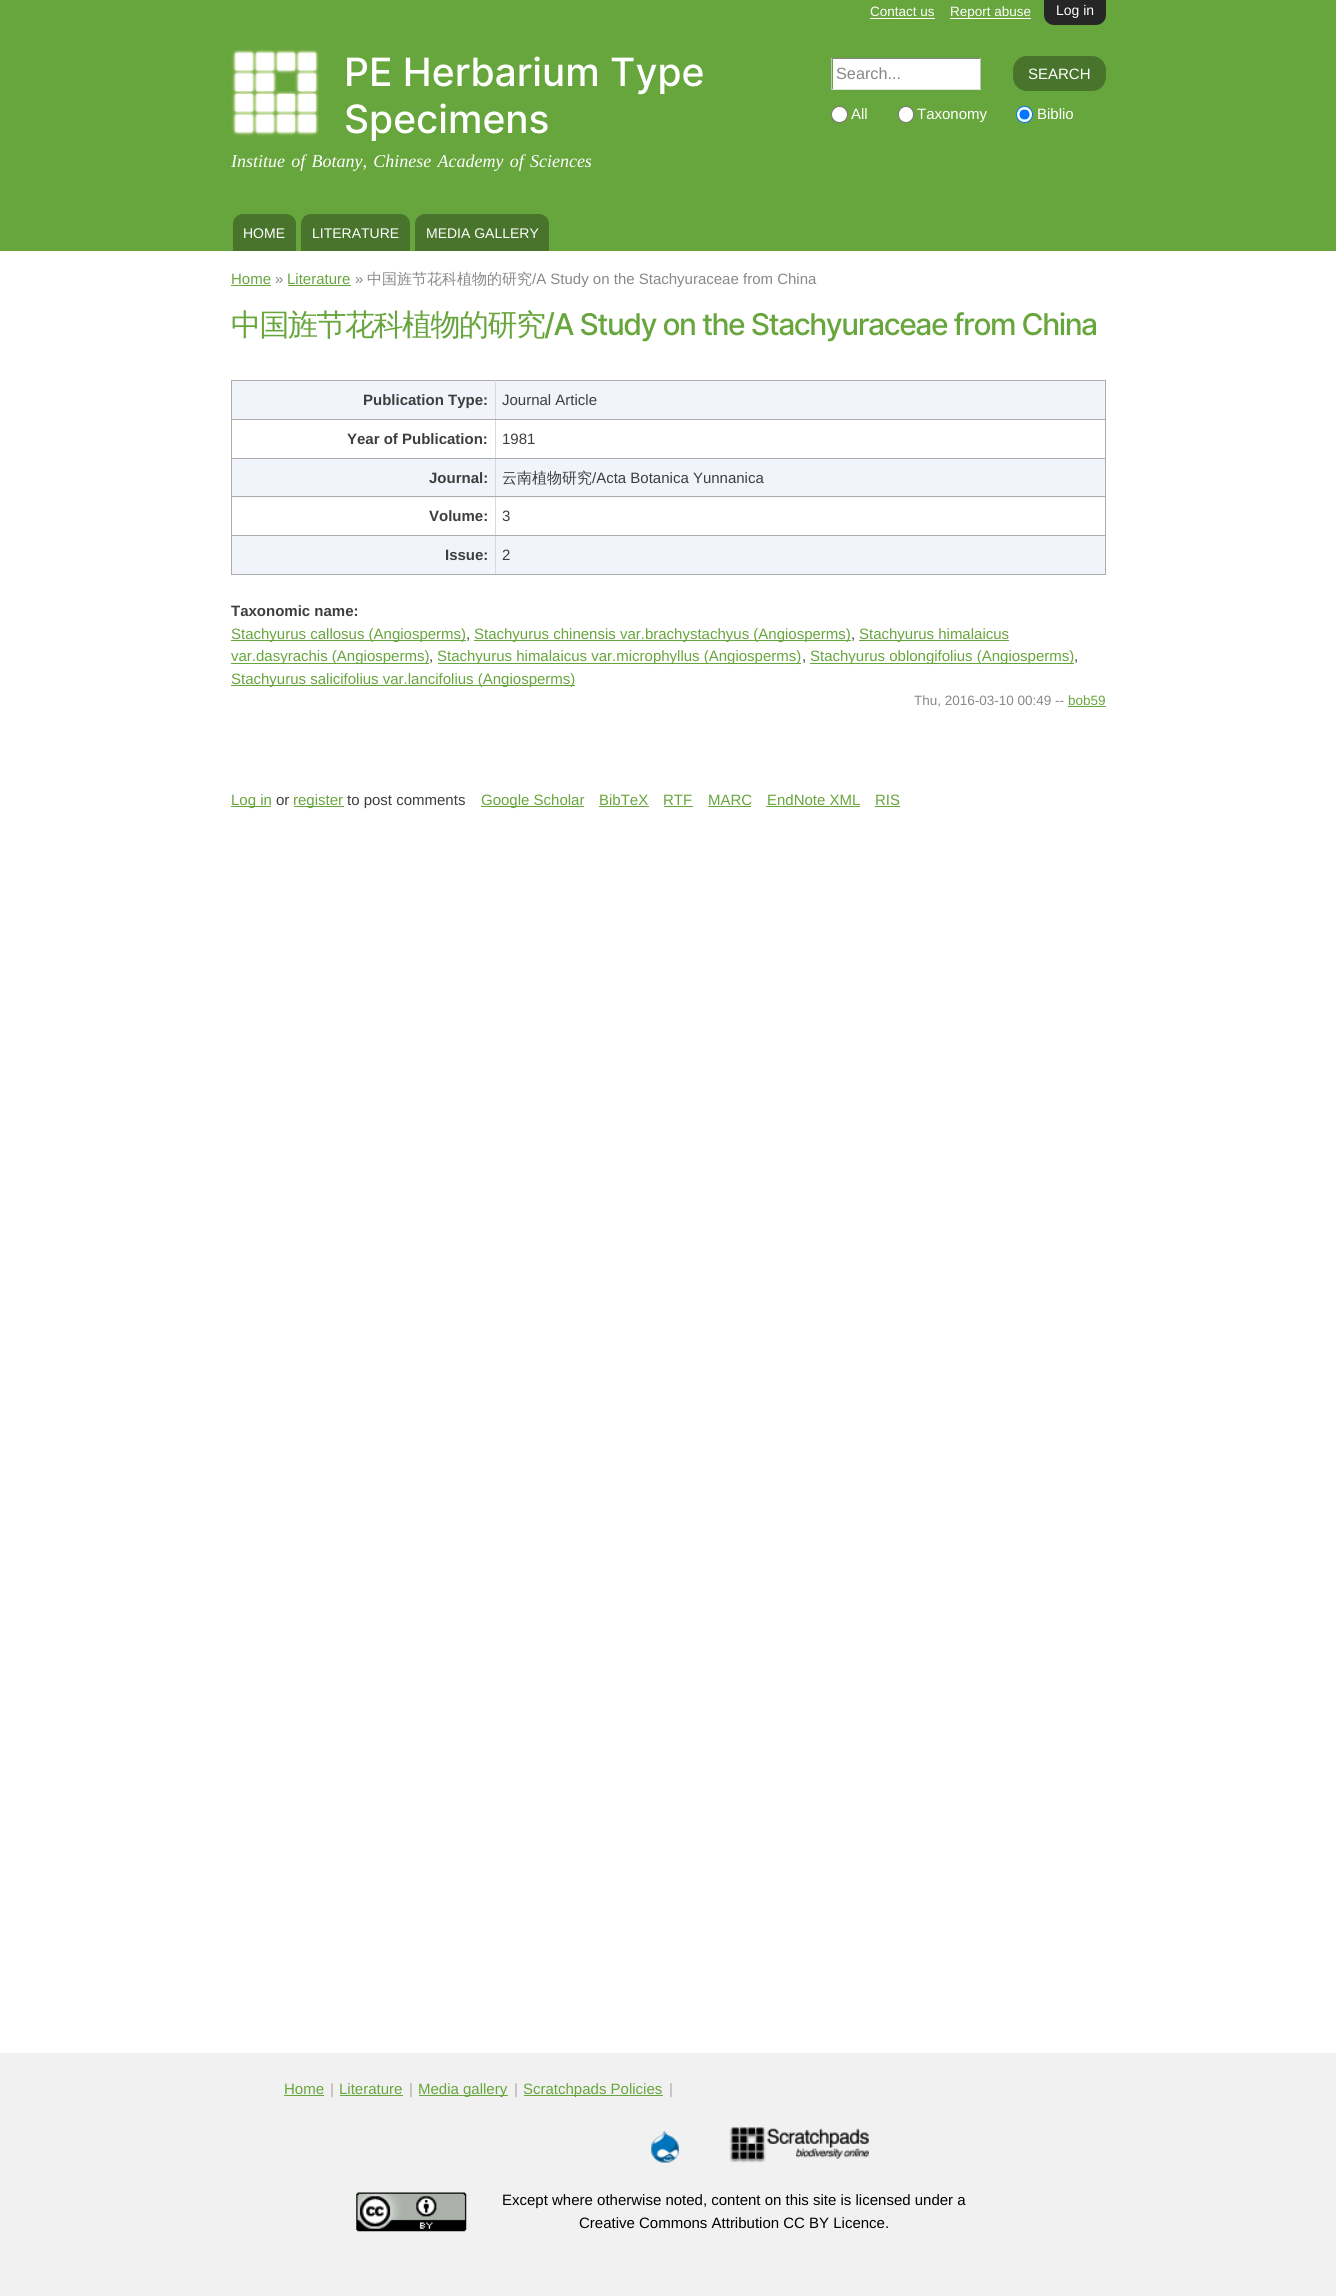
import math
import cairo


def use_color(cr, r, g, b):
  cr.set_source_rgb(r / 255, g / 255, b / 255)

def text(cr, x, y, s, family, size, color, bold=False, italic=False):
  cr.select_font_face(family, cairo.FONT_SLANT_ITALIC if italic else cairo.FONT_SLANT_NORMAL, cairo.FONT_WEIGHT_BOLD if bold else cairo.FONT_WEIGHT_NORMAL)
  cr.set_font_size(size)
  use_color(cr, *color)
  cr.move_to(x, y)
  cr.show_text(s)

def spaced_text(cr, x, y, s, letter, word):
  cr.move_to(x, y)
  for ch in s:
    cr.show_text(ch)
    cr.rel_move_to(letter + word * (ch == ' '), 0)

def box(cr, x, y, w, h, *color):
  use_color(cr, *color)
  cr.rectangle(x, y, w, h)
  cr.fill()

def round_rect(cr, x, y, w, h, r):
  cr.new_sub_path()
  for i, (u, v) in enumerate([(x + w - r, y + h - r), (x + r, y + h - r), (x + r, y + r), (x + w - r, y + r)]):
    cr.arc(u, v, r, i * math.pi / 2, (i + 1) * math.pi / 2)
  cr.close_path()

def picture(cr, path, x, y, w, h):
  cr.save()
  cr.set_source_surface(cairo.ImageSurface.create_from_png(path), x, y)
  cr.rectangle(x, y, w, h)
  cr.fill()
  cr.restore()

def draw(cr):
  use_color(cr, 255, 255, 255)
  cr.paint()
  box(cr, 0, 0, 1336, 251, 103, 165, 61)
  use_color(cr, 38, 38, 38)
  cr.new_path()
  cr.move_to(1044, 0)
  cr.line_to(1106, 0)
  cr.line_to(1106, 15)
  cr.curve_to(1106, 20.5, 1101.5, 25, 1096, 25)
  cr.line_to(1054, 25)
  cr.curve_to(1048.5, 25, 1044, 20.5, 1044, 15)
  cr.close_path()
  cr.fill()
  box(cr, 870, 18, 65, 1, 255, 255, 255)
  box(cr, 950, 18, 81, 1, 255, 255, 255)
  picture(cr, "img_01.png", 231, 49, 88, 87)
  box(cr, 833, 59, 147, 30, 255, 255, 255)
  box(cr, 831, 58, 150, 1, 132, 132, 132)
  box(cr, 980, 58, 1, 32, 193, 193, 193)
  box(cr, 831, 89, 150, 1, 225, 225, 225)
  box(cr, 831, 58, 1, 32, 193, 193, 193)
  use_color(cr, 72, 116, 43)
  round_rect(cr, 1013, 56, 93, 35, 14)
  cr.fill()
  use_color(cr, 255, 255, 255)
  cr.arc(839.5, 114.5, 8, 0, 2 * math.pi)
  cr.fill_preserve()
  use_color(cr, 118, 118, 118)
  cr.set_line_width(1)
  cr.stroke()
  use_color(cr, 255, 255, 255)
  round_rect(cr, 898.5, 106.5, 15, 16, 7.5)
  cr.fill_preserve()
  use_color(cr, 118, 118, 118)
  cr.stroke()
  use_color(cr, 255, 255, 255)
  cr.arc(1024.5, 114.5, 8, 0, 2 * math.pi)
  cr.fill_preserve()
  use_color(cr, 0, 117, 255)
  cr.stroke()
  cr.arc(1024.5, 114.5, 5, 0, 2 * math.pi)
  cr.fill()
  use_color(cr, 72, 116, 43)
  cr.new_path()
  cr.move_to(243, 214)
  cr.line_to(286, 214)
  cr.curve_to(291.5, 214, 296, 218.5, 296, 224)
  cr.line_to(296, 251)
  cr.line_to(233, 251)
  cr.line_to(233, 224)
  cr.curve_to(233, 218.5, 237.5, 214, 243, 214)
  cr.close_path()
  cr.fill()
  cr.new_path()
  cr.move_to(311, 214)
  cr.line_to(400, 214)
  cr.curve_to(405.5, 214, 410, 218.5, 410, 224)
  cr.line_to(410, 251)
  cr.line_to(301, 251)
  cr.line_to(301, 224)
  cr.curve_to(301, 218.5, 305.5, 214, 311, 214)
  cr.close_path()
  cr.fill()
  cr.new_path()
  cr.move_to(425, 214)
  cr.line_to(539, 214)
  cr.curve_to(544.5, 214, 549, 218.5, 549, 224)
  cr.line_to(549, 251)
  cr.line_to(415, 251)
  cr.line_to(415, 224)
  cr.curve_to(415, 218.5, 419.5, 214, 425, 214)
  cr.close_path()
  cr.fill()
  box(cr, 231, 285, 40, 1, 103, 165, 61)
  box(cr, 288, 285, 63, 1, 103, 165, 61)
  box(cr, 232, 381, 873, 38, 241, 244, 251)
  box(cr, 231, 380, 875, 1, 172, 172, 172)
  box(cr, 1105, 419, 1, 156, 172, 172, 172)
  box(cr, 1105, 380, 1, 40, 172, 172, 172)
  box(cr, 232, 459, 873, 39, 241, 244, 251)
  box(cr, 232, 536, 873, 38, 241, 244, 251)
  box(cr, 495, 574, 611, 1, 172, 172, 172)
  box(cr, 495, 535, 1, 40, 217, 218, 221)
  box(cr, 495, 535, 611, 1, 172, 172, 172)
  box(cr, 495, 496, 1, 40, 217, 218, 221)
  box(cr, 495, 496, 611, 1, 172, 172, 172)
  box(cr, 495, 458, 1, 40, 217, 218, 221)
  box(cr, 495, 458, 611, 1, 172, 172, 172)
  box(cr, 495, 419, 1, 40, 217, 218, 221)
  box(cr, 495, 419, 611, 1, 172, 172, 172)
  box(cr, 495, 380, 1, 40, 217, 218, 221)
  box(cr, 231, 574, 265, 1, 172, 172, 172)
  box(cr, 231, 535, 1, 40, 172, 172, 172)
  box(cr, 231, 535, 265, 1, 172, 172, 172)
  box(cr, 231, 496, 1, 40, 172, 172, 172)
  box(cr, 231, 496, 265, 1, 172, 172, 172)
  box(cr, 231, 458, 1, 40, 172, 172, 172)
  box(cr, 231, 458, 265, 1, 172, 172, 172)
  box(cr, 231, 419, 1, 40, 172, 172, 172)
  box(cr, 231, 419, 265, 1, 172, 172, 172)
  box(cr, 231, 380, 1, 40, 172, 172, 172)
  box(cr, 231, 640, 235, 1, 103, 165, 61)
  box(cr, 474, 640, 377, 1, 103, 165, 61)
  box(cr, 859, 640, 150, 1, 103, 165, 61)
  box(cr, 231, 663, 198, 1, 103, 165, 61)
  box(cr, 438, 663, 363, 1, 103, 165, 61)
  box(cr, 810, 663, 264, 1, 103, 165, 61)
  box(cr, 231, 685, 344, 1, 103, 165, 61)
  box(cr, 1068, 706, 38, 1, 103, 165, 61)
  box(cr, 231, 806, 40, 1, 103, 165, 61)
  box(cr, 294, 806, 50, 1, 103, 165, 61)
  box(cr, 481, 806, 103, 1, 103, 165, 61)
  box(cr, 599, 806, 50, 1, 103, 165, 61)
  box(cr, 664, 806, 29, 1, 103, 165, 61)
  box(cr, 708, 806, 43, 1, 103, 165, 61)
  box(cr, 766, 806, 94, 1, 103, 165, 61)
  box(cr, 875, 806, 25, 1, 103, 165, 61)
  box(cr, 0, 2053, 1336, 243, 241, 241, 241)
  box(cr, 284, 2095, 40, 1, 103, 165, 61)
  box(cr, 340, 2095, 63, 1, 103, 165, 61)
  box(cr, 419, 2095, 89, 1, 103, 165, 61)
  box(cr, 524, 2095, 139, 1, 103, 165, 61)
  picture(cr, "img_02.png", 651, 2131, 28, 32)
  picture(cr, "img_03.png", 729, 2127, 140, 36)
  picture(cr, "img_04.png", 356, 2192, 111, 40)
  text(cr, 1056, 15, "Log in", "Liberation Sans", 14, (255, 255, 255))
  text(cr, 870, 16, "Contact us", "Liberation Sans", 13.5, (255, 255, 255))
  text(cr, 950, 16, "Report abuse", "Liberation Sans", 13.5, (255, 255, 255))
  text(cr, 344, 86, "PE Herbarium Type", "Inter Medium", 39, (255, 255, 255))
  text(cr, 344, 133, "Specimens", "Inter Medium", 39, (255, 255, 255))
  cr.select_font_face("Liberation Serif", cairo.FONT_SLANT_ITALIC)
  cr.set_font_size(18)
  spaced_text(cr, 231, 167, "Institue of Botany, Chinese Academy of Sciences", 0, 1.75)
  text(cr, 836, 79, "Search...", "Liberation Sans", 16.25, (136, 136, 136))
  text(cr, 1028, 79, "SEARCH", "Liberation Sans", 15, (255, 255, 255))
  text(cr, 851, 119, "All", "Liberation Sans", 15, (255, 255, 255))
  text(cr, 917, 119, "Taxonomy", "Liberation Sans", 15, (255, 255, 255))
  text(cr, 1037, 119, "Biblio", "Liberation Sans", 15, (255, 255, 255))
  text(cr, 243, 238, "HOME", "Liberation Sans", 14, (255, 255, 255))
  text(cr, 312, 238, "LITERATURE", "Liberation Sans", 14, (255, 255, 255))
  text(cr, 426, 238, "MEDIA GALLERY", "Liberation Sans", 14, (255, 255, 255))
  text(cr, 231, 284, "Home", "Liberation Sans", 15, (103, 165, 61))
  text(cr, 275, 284, "»", "Liberation Sans", 15, (136, 136, 136))
  text(cr, 287, 284, "Literature", "Liberation Sans", 15, (103, 165, 61))
  text(cr, 355, 284, "»", "Liberation Sans", 15, (136, 136, 136))
  text(cr, 367, 284, "中国旌节花科植物的研究", "WenQuanYi Zen Hei Medium", 15, (136, 136, 136))
  text(cr, 532, 284, "/A Study on the Stachyuraceae from China", "Liberation Sans", 15, (136, 136, 136))
  cr.select_font_face("WenQuanYi Zen Hei Medium")
  cr.set_font_size(30)
  use_color(cr, 103, 165, 61)
  spaced_text(cr, 231, 335, "中国旌节花科植物的研究", -1.5, 0)
  cr.select_font_face("Inter Medium")
  spaced_text(cr, 544, 335, "/A Study on the Stachyuraceae from China", -1.5, 0)
  text(cr, 363, 405, "Publication Type:", "Liberation Sans", 15, (62, 62, 62), bold=True)
  text(cr, 502, 405, "Journal Article", "Liberation Sans", 15, (62, 62, 62))
  text(cr, 347, 444, "Year of Publication:", "Liberation Sans", 15, (62, 62, 62), bold=True)
  text(cr, 502, 444, "1981", "Liberation Sans", 15, (62, 62, 62))
  text(cr, 429, 483, "Journal:", "Liberation Sans", 15, (62, 62, 62), bold=True)
  text(cr, 502, 483, "云南植物研究", "WenQuanYi Zen Hei Medium", 15, (62, 62, 62))
  text(cr, 592, 483, "/Acta Botanica Yunnanica", "Liberation Sans", 15, (62, 62, 62))
  text(cr, 429, 521, "Volume:", "Liberation Sans", 15, (62, 62, 62), bold=True)
  text(cr, 502, 521, "3", "Liberation Sans", 15, (62, 62, 62))
  text(cr, 445, 560, "Issue:", "Liberation Sans", 15, (62, 62, 62), bold=True)
  text(cr, 502, 560, "2", "Liberation Sans", 15, (62, 62, 62))
  text(cr, 231, 616, "Taxonomic name:", "Liberation Sans", 15, (62, 62, 62), bold=True)
  text(cr, 231, 639, "Stachyurus callosus (Angiosperms)", "Liberation Sans", 15, (103, 165, 61))
  text(cr, 466, 639, ",", "Liberation Sans", 15, (62, 62, 62))
  text(cr, 474, 639, "Stachyurus chinensis var.brachystachyus (Angiosperms)", "Liberation Sans", 15, (103, 165, 61))
  text(cr, 851, 639, ",", "Liberation Sans", 15, (62, 62, 62))
  text(cr, 859, 639, "Stachyurus himalaicus", "Liberation Sans", 15, (103, 165, 61))
  text(cr, 231, 661, "var.dasyrachis (Angiosperms)", "Liberation Sans", 15, (103, 165, 61))
  text(cr, 429, 661, ",", "Liberation Sans", 15, (62, 62, 62))
  text(cr, 437, 661, "Stachyurus himalaicus var.microphyllus (Angiosperms)", "Liberation Sans", 15, (103, 165, 61))
  text(cr, 802, 661, ",", "Liberation Sans", 15, (62, 62, 62))
  text(cr, 810, 661, "Stachyurus oblongifolius (Angiosperms)", "Liberation Sans", 15, (103, 165, 61))
  text(cr, 1074, 661, ",", "Liberation Sans", 15, (62, 62, 62))
  text(cr, 231, 684, "Stachyurus salicifolius var.lancifolius (Angiosperms)", "Liberation Sans", 15, (103, 165, 61))
  text(cr, 914, 705, "Thu, 2016-03-10 00:49 --", "Liberation Sans", 13.5, (136, 136, 136))
  text(cr, 1068, 705, "bob59", "Liberation Sans", 13.5, (103, 165, 61))
  text(cr, 231, 805, "Log in", "Liberation Sans", 15, (103, 165, 61))
  text(cr, 276, 805, "or", "Liberation Sans", 15, (62, 62, 62))
  text(cr, 293, 805, "register", "Liberation Sans", 15, (103, 165, 61))
  text(cr, 347, 805, "to post comments", "Liberation Sans", 15, (62, 62, 62))
  text(cr, 481, 805, "Google Scholar", "Liberation Sans", 15, (103, 165, 61))
  text(cr, 599, 805, "BibTeX", "Liberation Sans", 15, (103, 165, 61))
  text(cr, 663, 805, "RTF", "Liberation Sans", 15, (103, 165, 61))
  text(cr, 708, 805, "MARC", "Liberation Sans", 15, (103, 165, 61))
  text(cr, 767, 805, "EndNote XML", "Liberation Sans", 15, (103, 165, 61))
  text(cr, 875, 805, "RIS", "Liberation Sans", 15, (103, 165, 61))
  text(cr, 284, 2094, "Home", "Liberation Sans", 15, (103, 165, 61))
  text(cr, 330, 2094, "|", "Liberation Sans", 15, (172, 172, 172))
  text(cr, 339, 2094, "Literature", "Liberation Sans", 15, (103, 165, 61))
  text(cr, 409, 2094, "|", "Liberation Sans", 15, (172, 172, 172))
  text(cr, 418, 2094, "Media gallery", "Liberation Sans", 15, (103, 165, 61))
  text(cr, 514, 2094, "|", "Liberation Sans", 15, (172, 172, 172))
  text(cr, 523, 2094, "Scratchpads Policies", "Liberation Sans", 15, (103, 165, 61))
  text(cr, 669, 2094, "|", "Liberation Sans", 15, (172, 172, 172))
  text(cr, 502, 2205, "Except where otherwise noted, content on this site is licensed under a", "Liberation Sans", 15, (0, 0, 0))
  text(cr, 579, 2228, "Creative Commons Attribution CC BY Licence.", "Liberation Sans", 15, (0, 0, 0))


surface = cairo.ImageSurface(cairo.FORMAT_RGB24, 1336, 2296)
cr = cairo.Context(surface)
options = cairo.FontOptions()
options.set_hint_metrics(cairo.HINT_METRICS_OFF)
options.set_hint_style(cairo.HINT_STYLE_NONE)
cr.set_font_options(options)
cr.set_miter_limit(4)
draw(cr)
surface.write_to_png("out.png")
